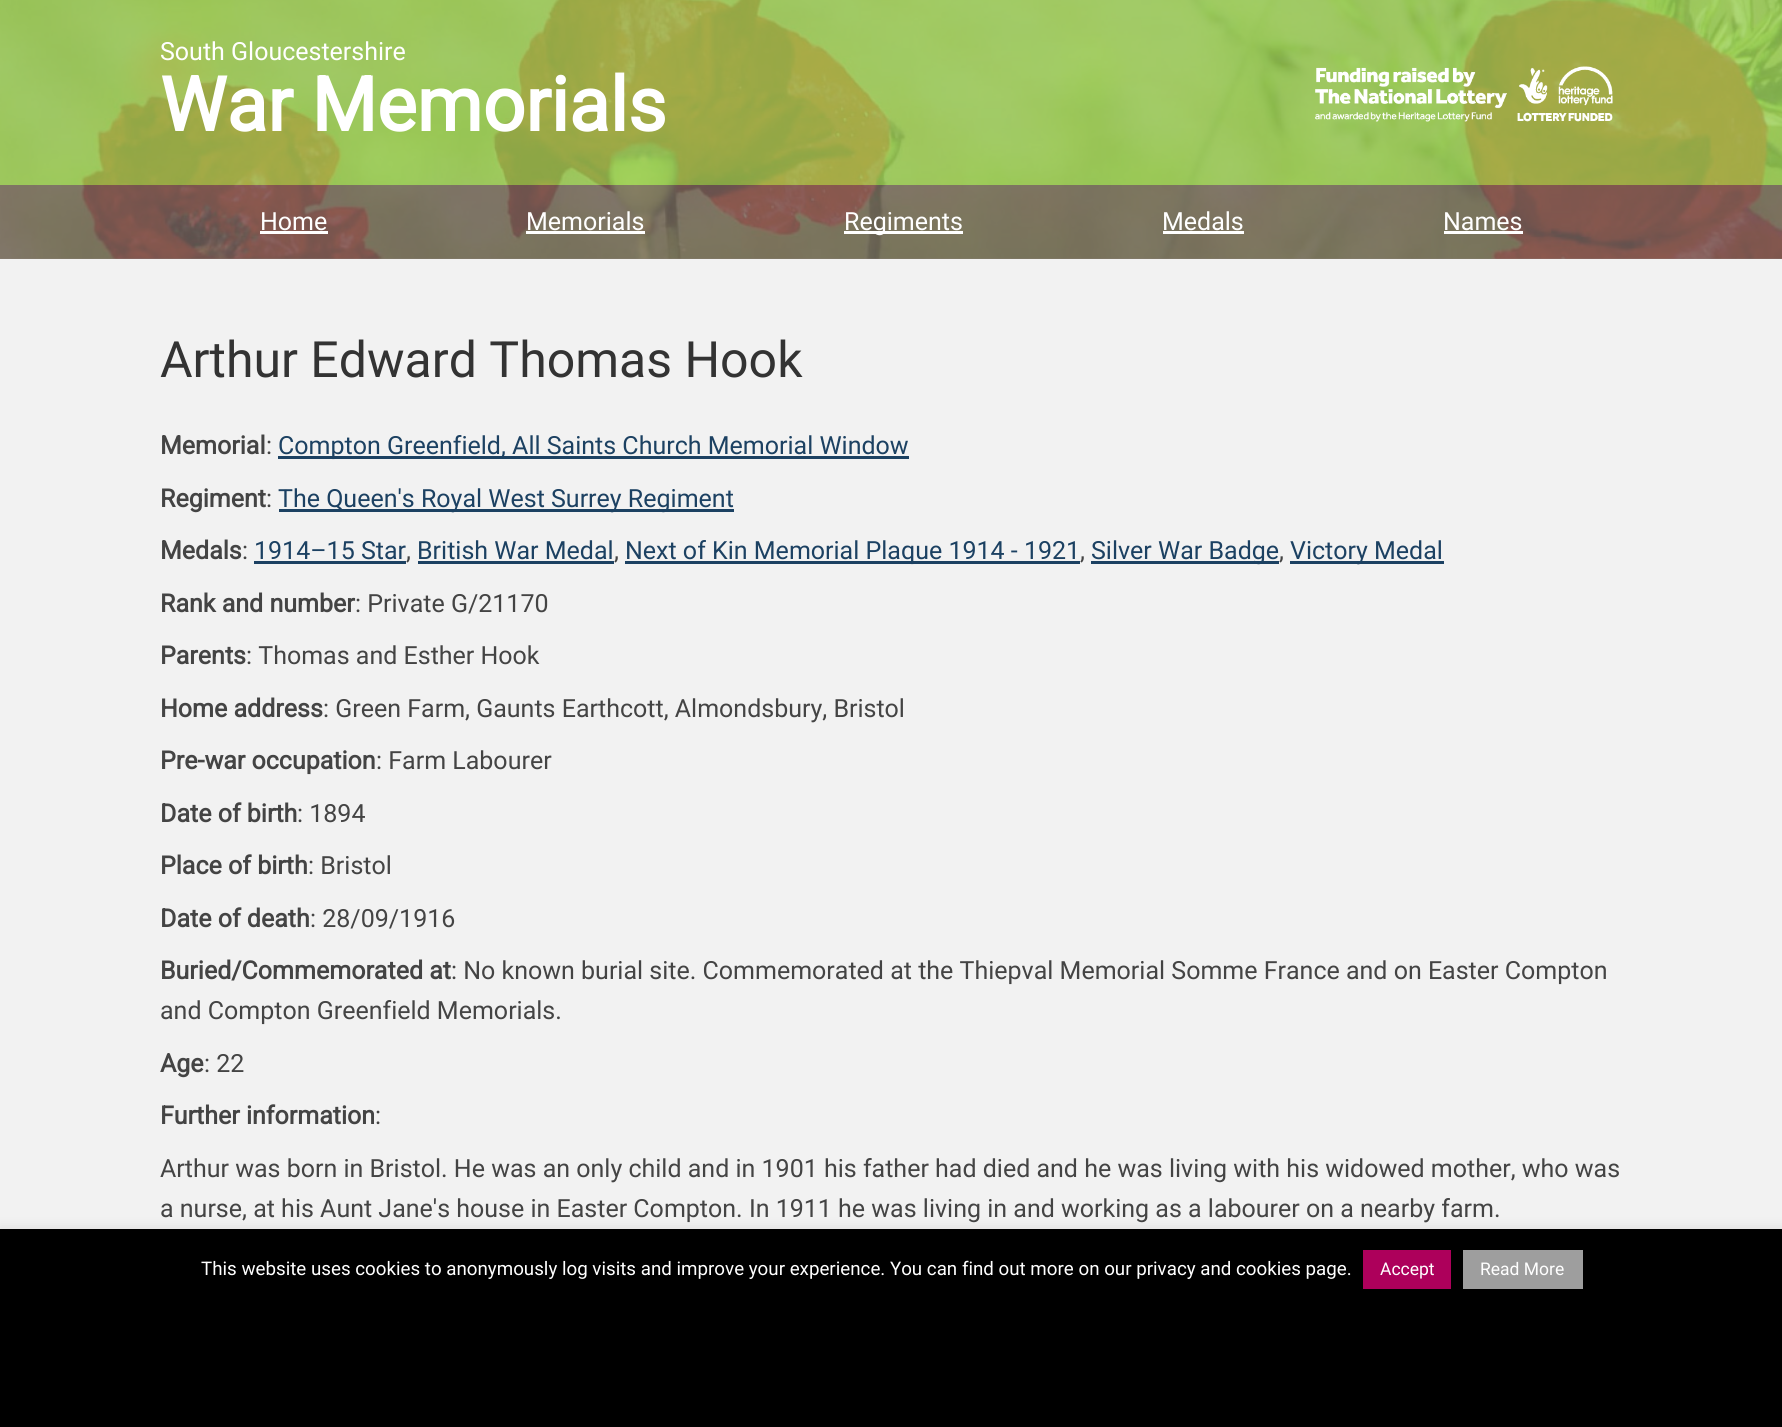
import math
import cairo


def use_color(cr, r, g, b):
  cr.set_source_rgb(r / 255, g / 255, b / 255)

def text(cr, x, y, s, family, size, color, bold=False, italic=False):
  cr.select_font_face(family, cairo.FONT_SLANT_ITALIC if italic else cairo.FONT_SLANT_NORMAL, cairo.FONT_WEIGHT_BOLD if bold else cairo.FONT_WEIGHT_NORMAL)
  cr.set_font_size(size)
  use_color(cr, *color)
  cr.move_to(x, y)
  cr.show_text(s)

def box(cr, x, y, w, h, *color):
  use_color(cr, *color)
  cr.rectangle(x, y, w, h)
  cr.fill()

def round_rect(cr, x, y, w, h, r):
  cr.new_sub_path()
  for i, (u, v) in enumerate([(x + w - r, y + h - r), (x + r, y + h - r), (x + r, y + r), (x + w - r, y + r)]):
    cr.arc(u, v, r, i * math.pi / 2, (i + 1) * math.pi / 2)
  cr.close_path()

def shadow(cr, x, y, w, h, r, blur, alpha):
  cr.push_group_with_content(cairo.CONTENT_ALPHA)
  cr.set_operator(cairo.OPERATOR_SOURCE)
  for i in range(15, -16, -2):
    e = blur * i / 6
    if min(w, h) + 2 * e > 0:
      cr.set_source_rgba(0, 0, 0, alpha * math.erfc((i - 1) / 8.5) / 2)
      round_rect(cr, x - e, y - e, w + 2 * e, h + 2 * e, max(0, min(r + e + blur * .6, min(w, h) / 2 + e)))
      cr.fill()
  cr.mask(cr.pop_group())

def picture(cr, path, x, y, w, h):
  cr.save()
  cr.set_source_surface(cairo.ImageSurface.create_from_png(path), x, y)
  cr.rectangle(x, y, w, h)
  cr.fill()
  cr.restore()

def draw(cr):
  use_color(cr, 242, 242, 242)
  cr.paint()
  picture(cr, "img_01.png", 0, 0, 1782, 259)
  cr.set_source_rgba(0.596, 0.804, 0.341, 0.8)
  cr.rectangle(0, 0, 1782, 185)
  cr.fill()
  picture(cr, "img_02.png", 1315, 66, 298, 56)
  cr.set_source_rgba(0.451, 0.396, 0.38, 0.8)
  cr.rectangle(0, 185, 1782, 74)
  cr.fill()
  box(cr, 260, 231, 68, 3, 255, 255, 255)
  box(cr, 526, 231, 119, 3, 255, 255, 255)
  box(cr, 844, 231, 119, 3, 255, 255, 255)
  box(cr, 1163, 231, 81, 3, 255, 255, 255)
  box(cr, 1444, 231, 79, 3, 255, 255, 255)
  box(cr, 278, 456, 631, 3, 28, 65, 98)
  box(cr, 279, 509, 455, 3, 28, 65, 98)
  box(cr, 254, 561, 152, 3, 28, 65, 98)
  box(cr, 418, 561, 196, 3, 28, 65, 98)
  box(cr, 625, 561, 455, 3, 28, 65, 98)
  box(cr, 1091, 561, 188, 3, 28, 65, 98)
  box(cr, 1290, 561, 154, 3, 28, 65, 98)
  use_color(cr, 172, 171, 171)
  shadow(cr, 0, 1228, 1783, 198, 0, 6, 0.3)
  box(cr, 0, 1229, 1782, 198, 0, 0, 0)
  box(cr, 1363, 1250, 88, 39, 173, 0, 91)
  box(cr, 1463, 1250, 120, 39, 158, 158, 158)
  text(cr, 160, 60, "South Gloucestershire", "Roboto", 25, (255, 255, 255))
  text(cr, 160, 131, "War Memorials", "Roboto", 75, (255, 255, 255), bold=True)
  text(cr, 260, 230, "Home", "Roboto", 25, (255, 255, 255))
  text(cr, 526, 230, "Memorials", "Roboto", 25, (255, 255, 255))
  text(cr, 844, 230, "Regiments", "Roboto", 25, (255, 255, 255))
  text(cr, 1162, 230, "Medals", "Roboto", 25, (255, 255, 255))
  text(cr, 1443, 230, "Names", "Roboto", 25, (255, 255, 255))
  text(cr, 160, 377, "Arthur Edward Thomas Hook", "Roboto", 50, (51, 51, 51))
  text(cr, 160, 454, "Memorial", "Roboto", 25, (68, 68, 68), bold=True)
  text(cr, 266, 454, ":", "Roboto", 25, (68, 68, 68))
  text(cr, 278, 454, "Compton Greenfield, All Saints Church Memorial Window", "Roboto", 25, (28, 65, 98))
  text(cr, 160, 507, "Regiment", "Roboto", 25, (68, 68, 68), bold=True)
  text(cr, 266, 507, ":", "Roboto", 25, (68, 68, 68))
  text(cr, 278, 507, "The Queen's Royal West Surrey Regiment", "Roboto", 25, (28, 65, 98))
  text(cr, 160, 559, "Medals", "Roboto", 25, (68, 68, 68), bold=True)
  text(cr, 242, 559, ":", "Roboto", 25, (68, 68, 68))
  text(cr, 254, 559, "1914–15 Star", "Roboto", 25, (28, 65, 98))
  text(cr, 406, 559, ",", "Roboto", 25, (68, 68, 68))
  text(cr, 417, 559, "British War Medal", "Roboto", 25, (28, 65, 98))
  text(cr, 614, 559, ",", "Roboto", 25, (68, 68, 68))
  text(cr, 625, 559, "Next of Kin Memorial Plaque 1914 - 1921", "Roboto", 25, (28, 65, 98))
  text(cr, 1080, 559, ",", "Roboto", 25, (68, 68, 68))
  text(cr, 1091, 559, "Silver War Badge", "Roboto", 25, (28, 65, 98))
  text(cr, 1279, 559, ",", "Roboto", 25, (68, 68, 68))
  text(cr, 1290, 559, "Victory Medal", "Roboto", 25, (28, 65, 98))
  text(cr, 160, 612, "Rank and number", "Roboto", 25, (68, 68, 68), bold=True)
  text(cr, 355, 612, ": Private G/21170", "Roboto", 25, (68, 68, 68))
  text(cr, 160, 664, "Parents", "Roboto", 25, (68, 68, 68), bold=True)
  text(cr, 246, 664, ": Thomas and Esther Hook", "Roboto", 25, (68, 68, 68))
  text(cr, 160, 717, "Home address", "Roboto", 25, (68, 68, 68), bold=True)
  text(cr, 323, 717, ": Green Farm, Gaunts Earthcott, Almondsbury, Bristol", "Roboto", 25, (68, 68, 68))
  text(cr, 160, 769, "Pre-war occupation", "Roboto", 25, (68, 68, 68), bold=True)
  text(cr, 376, 769, ": Farm Labourer", "Roboto", 25, (68, 68, 68))
  text(cr, 160, 822, "Date of birth", "Roboto", 25, (68, 68, 68), bold=True)
  text(cr, 297, 822, ": 1894", "Roboto", 25, (68, 68, 68))
  text(cr, 160, 874, "Place of birth", "Roboto", 25, (68, 68, 68), bold=True)
  text(cr, 308, 874, ": Bristol", "Roboto", 25, (68, 68, 68))
  text(cr, 160, 927, "Date of death", "Roboto", 25, (68, 68, 68), bold=True)
  text(cr, 310, 927, ": 28/09/1916", "Roboto", 25, (68, 68, 68))
  text(cr, 160, 979, "Buried/Commemorated at", "Roboto", 25, (68, 68, 68), bold=True)
  text(cr, 451, 979, ": No known burial site. Commemorated at the Thiepval Memorial Somme France and on Easter Compton", "Roboto", 25, (68, 68, 68))
  text(cr, 160, 1019, "and Compton Greenfield Memorials.", "Roboto", 25, (68, 68, 68))
  text(cr, 160, 1072, "Age", "Roboto", 25, (68, 68, 68), bold=True)
  text(cr, 204, 1072, ": 22", "Roboto", 25, (68, 68, 68))
  text(cr, 160, 1124, "Further information", "Roboto", 25, (68, 68, 68), bold=True)
  text(cr, 375, 1124, ":", "Roboto", 25, (68, 68, 68))
  text(cr, 160, 1177, "Arthur was born in Bristol. He was an only child and in 1901 his father had died and he was living with his widowed mother, who was", "Roboto", 25, (68, 68, 68))
  text(cr, 160, 1217, "a nurse, at his Aunt Jane's house in Easter Compton. In 1911 he was living in and working as a labourer on a nearby farm.", "Roboto", 25, (68, 68, 68))
  text(cr, 201, 1275, "This website uses cookies to anonymously log visits and improve your experience. You can find out more on our privacy and cookies page.", "Roboto", 18.75, (255, 255, 255))
  text(cr, 1380, 1275, "Accept", "Roboto", 17.5, (255, 255, 255))
  text(cr, 1480, 1275, "Read More", "Roboto", 17.5, (255, 255, 255))


surface = cairo.ImageSurface(cairo.FORMAT_RGB24, 1782, 1427)
cr = cairo.Context(surface)
options = cairo.FontOptions()
options.set_hint_metrics(cairo.HINT_METRICS_OFF)
options.set_hint_style(cairo.HINT_STYLE_NONE)
cr.set_font_options(options)
cr.set_miter_limit(4)
draw(cr)
surface.write_to_png("out.png")
